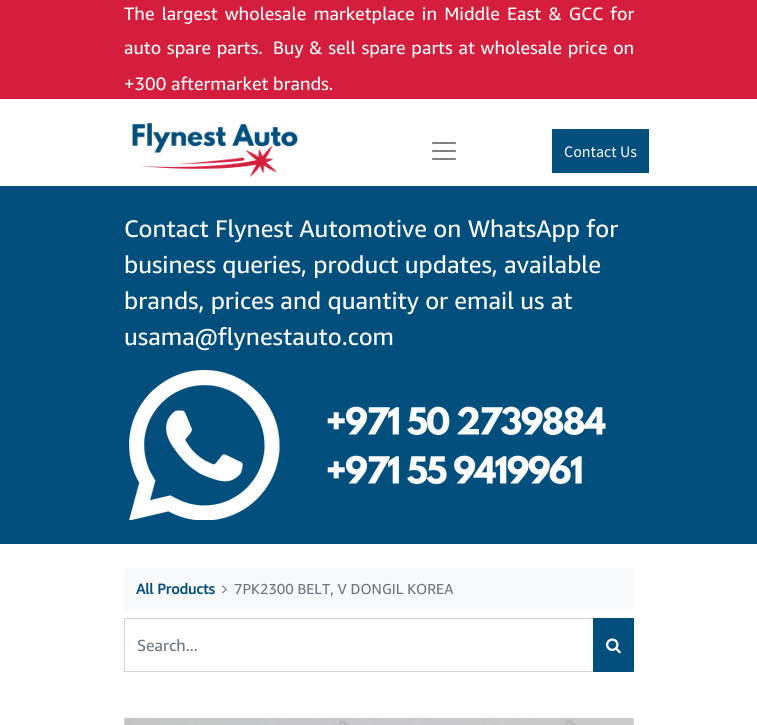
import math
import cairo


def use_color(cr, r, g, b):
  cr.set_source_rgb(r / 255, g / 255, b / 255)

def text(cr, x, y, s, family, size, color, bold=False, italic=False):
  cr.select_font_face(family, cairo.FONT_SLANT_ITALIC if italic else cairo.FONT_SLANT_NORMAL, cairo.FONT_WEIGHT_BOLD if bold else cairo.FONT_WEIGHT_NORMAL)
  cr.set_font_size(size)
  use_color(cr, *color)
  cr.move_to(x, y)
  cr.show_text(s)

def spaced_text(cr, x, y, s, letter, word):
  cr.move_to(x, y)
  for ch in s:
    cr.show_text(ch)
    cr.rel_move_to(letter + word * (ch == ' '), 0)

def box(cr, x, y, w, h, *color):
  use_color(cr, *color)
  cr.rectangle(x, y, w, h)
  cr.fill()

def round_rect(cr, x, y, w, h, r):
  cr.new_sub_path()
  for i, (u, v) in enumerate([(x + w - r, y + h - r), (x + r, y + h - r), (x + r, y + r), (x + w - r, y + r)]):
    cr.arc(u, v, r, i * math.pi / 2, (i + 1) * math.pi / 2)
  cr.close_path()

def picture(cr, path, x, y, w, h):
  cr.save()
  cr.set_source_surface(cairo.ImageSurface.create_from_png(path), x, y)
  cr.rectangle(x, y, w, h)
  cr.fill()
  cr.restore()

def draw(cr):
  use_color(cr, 255, 255, 255)
  cr.paint()
  box(cr, 0, 0, 757, 99, 213, 30, 62)
  picture(cr, "img_01.png", 132, 123, 166, 55)
  picture(cr, "img_02.png", 432, 142, 24, 18)
  box(cr, 552, 129, 97, 44, 2, 78, 125)
  box(cr, 0, 186, 757, 358, 2, 78, 125)
  picture(cr, "img_03.png", 129, 370, 477, 150)
  use_color(cr, 248, 249, 250)
  round_rect(cr, 124, 568, 510, 42, 4)
  cr.fill()
  picture(cr, "img_04.png", 222, 585, 5, 9)
  cr.new_path()
  cr.move_to(125, 618.5)
  cr.line_to(593.5, 618.5)
  cr.line_to(593.5, 671.5)
  cr.line_to(125, 671.5)
  cr.curve_to(124.5, 671.5, 124.5, 671.5, 124.5, 671)
  cr.line_to(124.5, 619)
  cr.curve_to(124.5, 618.5, 124.5, 618.5, 125, 618.5)
  cr.close_path()
  use_color(cr, 206, 212, 218)
  cr.set_line_width(1)
  cr.stroke()
  use_color(cr, 2, 78, 125)
  cr.new_path()
  cr.move_to(593.5, 618.5)
  cr.line_to(633, 618.5)
  cr.curve_to(633.5, 618.5, 633.5, 618.5, 633.5, 619)
  cr.line_to(633.5, 671)
  cr.curve_to(633.5, 671.5, 633.5, 671.5, 633, 671.5)
  cr.line_to(593.5, 671.5)
  cr.close_path()
  cr.fill_preserve()
  cr.stroke()
  picture(cr, "img_05.png", 606, 638, 15, 16)
  picture(cr, "img_06.png", 124, 717, 510, 8)
  cr.select_font_face("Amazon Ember")
  cr.set_font_size(18)
  use_color(cr, 255, 255, 255)
  spaced_text(cr, 124, 20, "The largest wholesale marketplace in Middle East & GCC for", 0, 2.5)
  spaced_text(cr, 124, 54, "auto spare parts.", 0, 1)
  spaced_text(cr, 273, 54, "Buy & sell spare parts at wholesale price on", 0, 1)
  text(cr, 124, 90, "+300 aftermarket brands.", "Amazon Ember", 18, (255, 255, 255))
  text(cr, 564, 157, "Contact Us", "Source Sans Pro", 16, (255, 255, 255))
  text(cr, 124, 237, "Contact Flynest Automotive on WhatsApp for", "Amazon Ember", 24, (255, 255, 255))
  text(cr, 124, 273, "business queries, product updates, available", "Amazon Ember", 24, (255, 255, 255))
  text(cr, 124, 309, "brands, prices and quantity or email us at", "Amazon Ember", 24, (255, 255, 255))
  text(cr, 124, 345, "usama@flynestauto.com", "Amazon Ember", 24, (255, 255, 255))
  text(cr, 136, 594, "All Products", "Amazon Ember", 14.4, (2, 78, 125), bold=True)
  text(cr, 234, 594, "7PK2300 BELT, V DONGIL KOREA", "Amazon Ember", 14.4, (108, 117, 125))
  text(cr, 137, 651, "Search...", "Amazon Ember", 16, (108, 117, 125))


surface = cairo.ImageSurface(cairo.FORMAT_RGB24, 757, 725)
cr = cairo.Context(surface)
options = cairo.FontOptions()
options.set_hint_metrics(cairo.HINT_METRICS_OFF)
options.set_hint_style(cairo.HINT_STYLE_NONE)
cr.set_font_options(options)
cr.set_miter_limit(4)
draw(cr)
surface.write_to_png("out.png")
